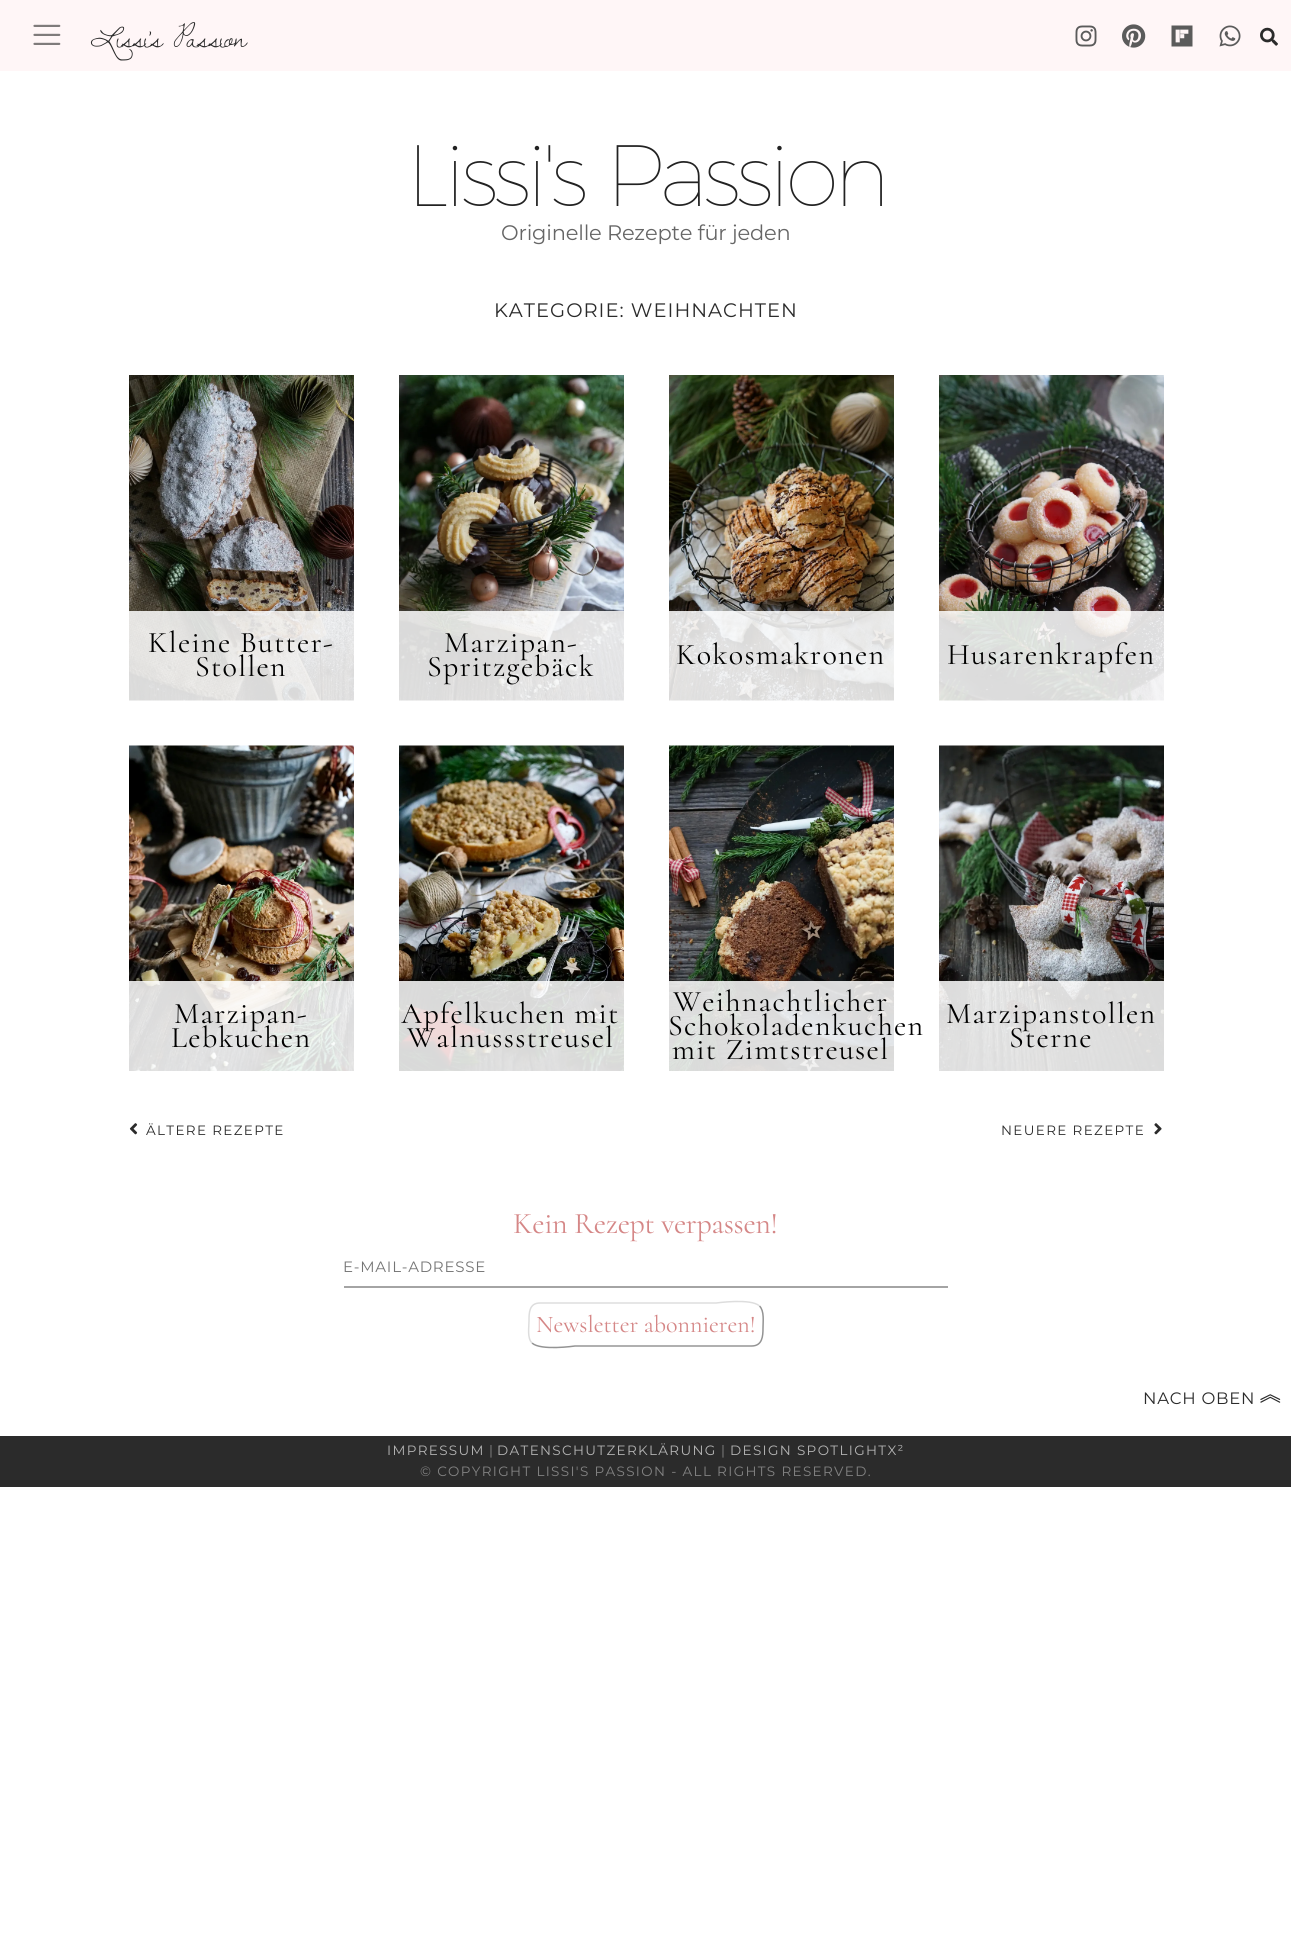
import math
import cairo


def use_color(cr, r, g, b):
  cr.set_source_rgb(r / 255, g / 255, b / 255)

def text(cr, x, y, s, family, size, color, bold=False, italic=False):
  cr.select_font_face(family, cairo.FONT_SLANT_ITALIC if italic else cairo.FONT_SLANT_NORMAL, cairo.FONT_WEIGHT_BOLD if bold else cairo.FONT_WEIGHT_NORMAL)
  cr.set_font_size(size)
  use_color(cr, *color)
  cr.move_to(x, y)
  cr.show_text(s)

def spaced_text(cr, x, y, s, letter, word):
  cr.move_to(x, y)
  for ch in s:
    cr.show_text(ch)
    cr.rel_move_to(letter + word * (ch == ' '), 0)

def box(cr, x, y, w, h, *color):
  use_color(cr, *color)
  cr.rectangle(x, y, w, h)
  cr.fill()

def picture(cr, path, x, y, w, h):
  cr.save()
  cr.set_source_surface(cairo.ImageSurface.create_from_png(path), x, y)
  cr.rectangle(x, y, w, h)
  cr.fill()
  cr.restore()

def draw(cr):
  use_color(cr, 255, 255, 255)
  cr.paint()
  box(cr, 0, 0, 1291, 71, 255, 246, 247)
  picture(cr, "img_01.png", 33, 24, 28, 21)
  picture(cr, "img_02.png", 1075, 25, 22, 22)
  picture(cr, "img_03.png", 1122, 24, 24, 24)
  picture(cr, "img_04.png", 1171, 25, 22, 22)
  picture(cr, "img_05.png", 1219, 25, 22, 22)
  picture(cr, "img_06.png", 1260, 27, 18, 19)
  picture(cr, "img_07.png", 129, 375, 225, 326)
  cr.set_source_rgba(1, 1, 1, 0.85)
  cr.rectangle(129, 611, 225, 90)
  cr.fill()
  picture(cr, "img_08.png", 399, 375, 225, 326)
  cr.rectangle(399, 611, 225, 90)
  cr.fill()
  picture(cr, "img_09.png", 669, 375, 225, 326)
  cr.rectangle(669, 611, 225, 90)
  cr.fill()
  picture(cr, "img_10.png", 939, 375, 225, 326)
  cr.rectangle(939, 611, 225, 90)
  cr.fill()
  picture(cr, "img_11.png", 129, 745, 225, 326)
  cr.rectangle(129, 981, 225, 90)
  cr.fill()
  picture(cr, "img_12.png", 399, 745, 225, 326)
  cr.rectangle(399, 981, 225, 90)
  cr.fill()
  picture(cr, "img_13.png", 669, 745, 225, 326)
  cr.rectangle(669, 981, 225, 90)
  cr.fill()
  picture(cr, "img_14.png", 939, 745, 225, 326)
  cr.rectangle(939, 981, 225, 90)
  cr.fill()
  picture(cr, "img_15.png", 129, 1123, 9, 12)
  picture(cr, "img_16.png", 1154, 1123, 8, 12)
  box(cr, 344, 1286, 604, 2, 164, 164, 164)
  cr.new_path()
  cr.move_to(759.5, 1306)
  cr.curve_to(764.5, 1311, 763, 1321.5, 763, 1328)
  cr.curve_to(763, 1336, 762.5, 1346, 751.5, 1346)
  cr.line_to(575, 1346)
  cr.curve_to(575, 1346, 540.5, 1351, 532, 1343)
  use_color(cr, 147, 147, 147)
  cr.set_line_width(1.5)
  cr.stroke()
  cr.new_path()
  cr.move_to(532, 1343)
  cr.curve_to(527, 1338, 529, 1327.5, 529, 1321)
  cr.curve_to(529, 1313, 529, 1303, 540, 1303)
  cr.line_to(716, 1303)
  cr.curve_to(716.5, 1303, 751, 1298, 759.5, 1306)
  use_color(cr, 221, 221, 221)
  cr.stroke()
  box(cr, 0, 1436, 1291, 51, 43, 43, 43)
  cr.select_font_face("Dawning of a New Day")
  cr.set_font_size(30)
  spaced_text(cr, 90, 47, "Lissi's Passion", -1.5, 0)
  cr.select_font_face("Montserrat Thin")
  cr.set_font_size(87)
  use_color(cr, 34, 34, 34)
  spaced_text(cr, 406, 206, "Lissi's Passion", -4.3, 0)
  cr.select_font_face("Montserrat")
  cr.set_font_size(21)
  use_color(cr, 102, 102, 102)
  spaced_text(cr, 501, 240, "Originelle Rezepte für jeden", -0.2, 0)
  cr.set_font_size(19.5)
  use_color(cr, 43, 43, 43)
  spaced_text(cr, 494, 317, "KATEGORIE: WEIHNACHTEN", 1, 0)
  cr.select_font_face("Cormorant")
  cr.set_font_size(30)
  use_color(cr, 0, 0, 0)
  spaced_text(cr, 148, 652, "Kleine Butter-", 1.35, 0)
  spaced_text(cr, 195, 676, "Stollen", 1.35, 0)
  spaced_text(cr, 444, 652, "Marzipan-", 1.35, 0)
  spaced_text(cr, 427, 676, "Spritzgebäck", 1.35, 0)
  spaced_text(cr, 676, 664, "Kokosmakronen", 1.35, 0)
  spaced_text(cr, 947, 664, "Husarenkrapfen", 1.35, 0)
  spaced_text(cr, 174, 1023, "Marzipan-", 1.35, 0)
  spaced_text(cr, 171, 1047, "Lebkuchen", 1.35, 0)
  spaced_text(cr, 401, 1023, "Apfelkuchen mit", 1.35, 0)
  spaced_text(cr, 407, 1047, "Walnussstreusel", 1.35, 0)
  spaced_text(cr, 673, 1011, "Weihnachtlicher", 1.35, 0)
  spaced_text(cr, 668, 1035, "Schokoladenkuchen", 1.35, 0)
  spaced_text(cr, 672, 1059, "mit Zimtstreusel", 1.35, 0)
  spaced_text(cr, 946, 1023, "Marzipanstollen", 1.35, 0)
  spaced_text(cr, 1009, 1047, "Sterne", 1.35, 0)
  cr.select_font_face("Montserrat")
  cr.set_font_size(13.5)
  use_color(cr, 43, 43, 43)
  spaced_text(cr, 146, 1135, "ÄLTERE REZEPTE", 1.35, 0)
  spaced_text(cr, 1001, 1135, "NEUERE REZEPTE", 1.35, 0)
  cr.select_font_face("Cormorant")
  cr.set_font_size(30)
  use_color(cr, 213, 135, 135)
  spaced_text(cr, 513, 1233, "Kein Rezept verpassen!", -0.3, 0)
  cr.select_font_face("Montserrat")
  cr.set_font_size(15)
  use_color(cr, 117, 117, 117)
  spaced_text(cr, 343, 1272, "E-MAIL-ADRESSE", 0.75, 0)
  text(cr, 536, 1332, "Newsletter abonnieren!", "Cormorant", 24, (213, 135, 135))
  cr.select_font_face("Montserrat")
  cr.set_font_size(16.5)
  use_color(cr, 43, 43, 43)
  spaced_text(cr, 1143, 1404, "NACH OBEN", 0.75, 0)
  cr.select_font_face("WenQuanYi Zen Hei Medium")
  cr.set_font_size(24)
  spaced_text(cr, 1259, 1401, "︽", 0.75, 0)
  cr.select_font_face("Montserrat")
  cr.set_font_size(13.5)
  use_color(cr, 180, 180, 180)
  spaced_text(cr, 387, 1455, "IMPRESSUM", 1.35, 0)
  use_color(cr, 131, 131, 131)
  spaced_text(cr, 489, 1455, "|", 0.75, 0)
  use_color(cr, 180, 180, 180)
  spaced_text(cr, 497, 1455, "DATENSCHUTZERKLÄRUNG", 1.35, 0)
  use_color(cr, 131, 131, 131)
  spaced_text(cr, 721, 1455, "|", 0.75, 0)
  use_color(cr, 180, 180, 180)
  spaced_text(cr, 730, 1455, "DESIGN SPOTLIGHTX²", 1.35, 0)
  use_color(cr, 131, 131, 131)
  spaced_text(cr, 420, 1476, "© COPYRIGHT LISSI'S PASSION - ALL RIGHTS RESERVED.", 1.35, 0)


surface = cairo.ImageSurface(cairo.FORMAT_RGB24, 1291, 1942)
cr = cairo.Context(surface)
options = cairo.FontOptions()
options.set_hint_metrics(cairo.HINT_METRICS_OFF)
options.set_hint_style(cairo.HINT_STYLE_NONE)
cr.set_font_options(options)
cr.set_miter_limit(4)
draw(cr)
surface.write_to_png("out.png")
